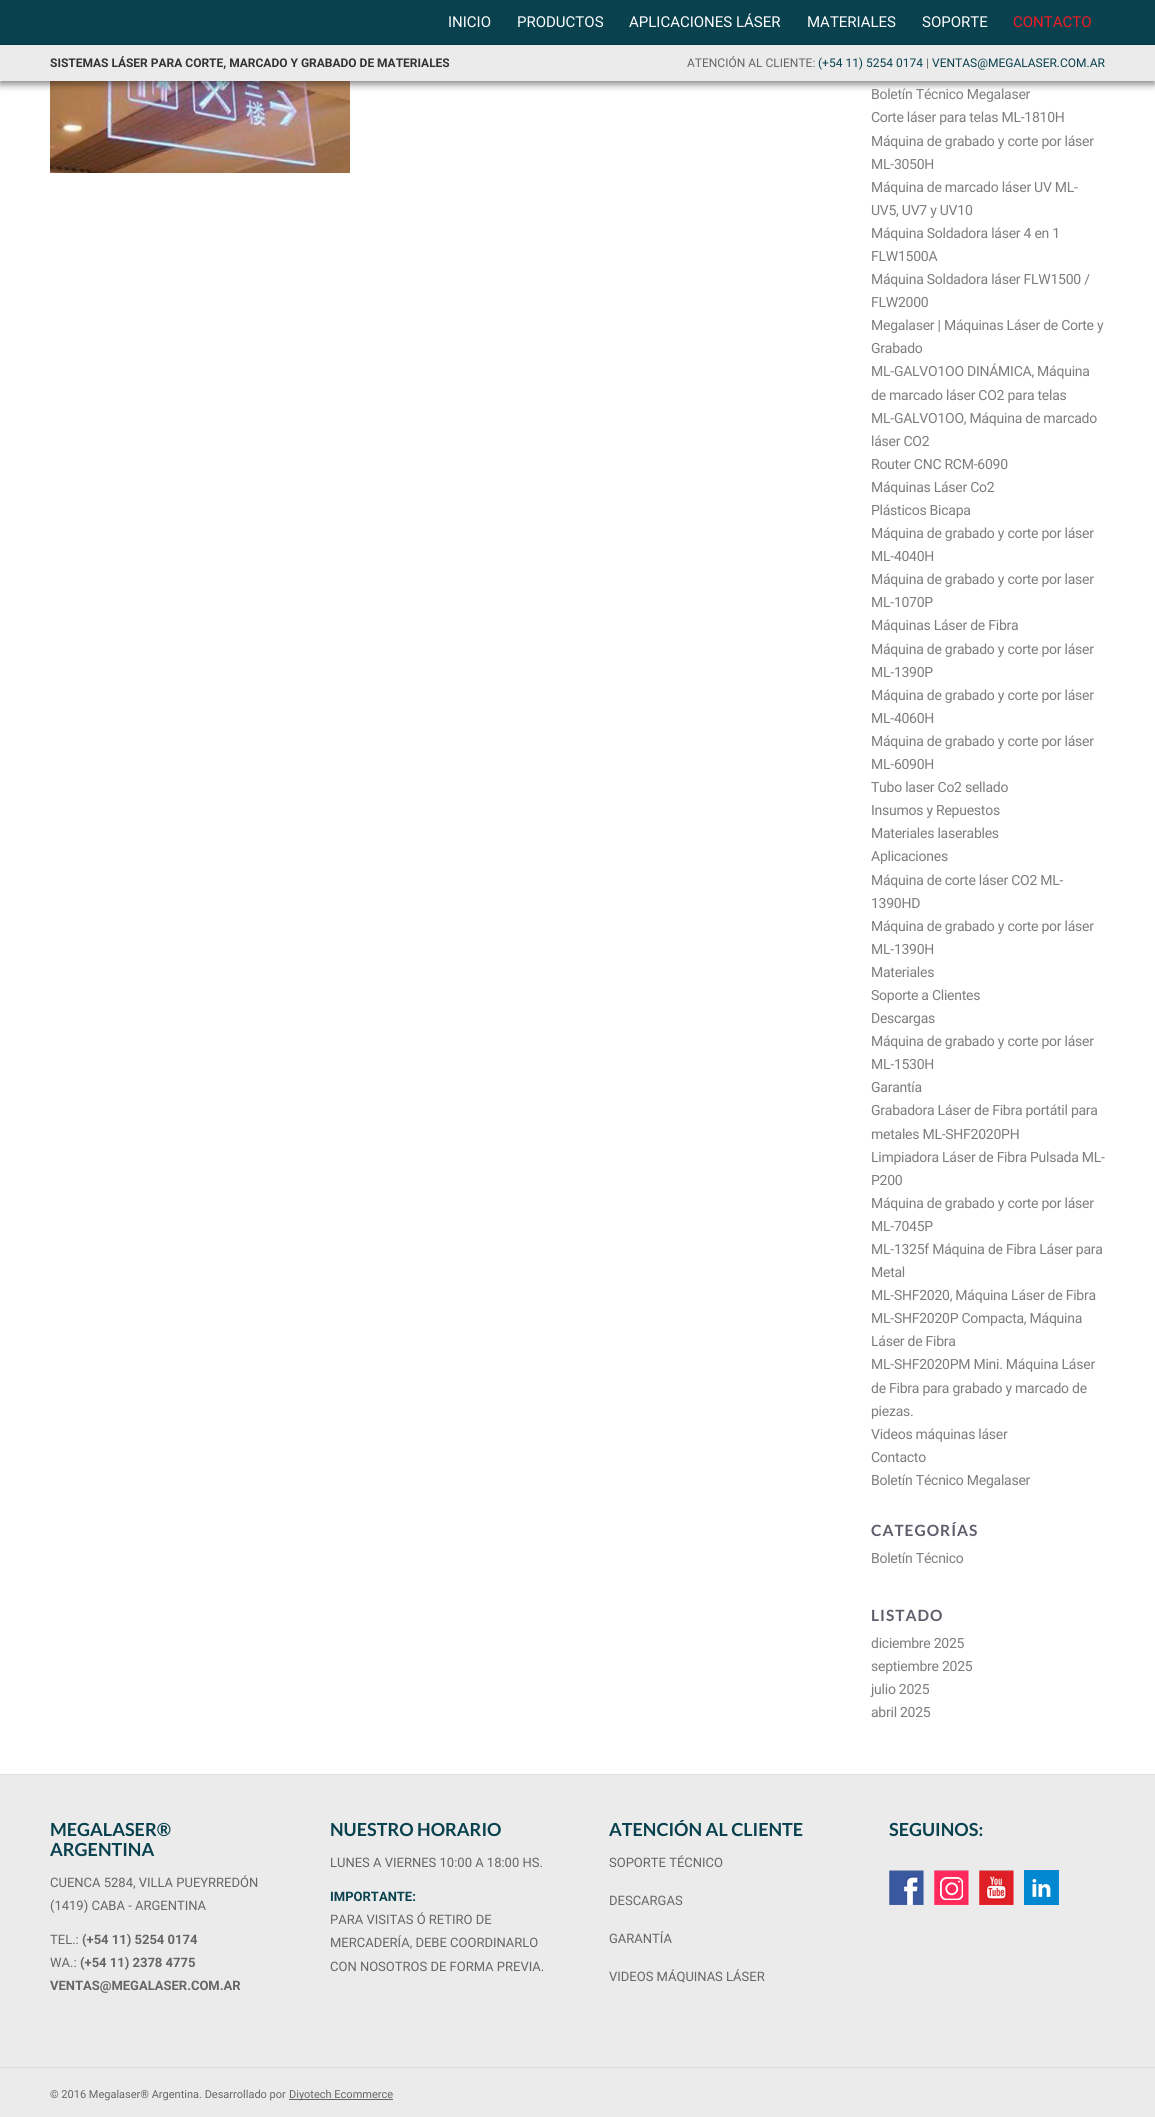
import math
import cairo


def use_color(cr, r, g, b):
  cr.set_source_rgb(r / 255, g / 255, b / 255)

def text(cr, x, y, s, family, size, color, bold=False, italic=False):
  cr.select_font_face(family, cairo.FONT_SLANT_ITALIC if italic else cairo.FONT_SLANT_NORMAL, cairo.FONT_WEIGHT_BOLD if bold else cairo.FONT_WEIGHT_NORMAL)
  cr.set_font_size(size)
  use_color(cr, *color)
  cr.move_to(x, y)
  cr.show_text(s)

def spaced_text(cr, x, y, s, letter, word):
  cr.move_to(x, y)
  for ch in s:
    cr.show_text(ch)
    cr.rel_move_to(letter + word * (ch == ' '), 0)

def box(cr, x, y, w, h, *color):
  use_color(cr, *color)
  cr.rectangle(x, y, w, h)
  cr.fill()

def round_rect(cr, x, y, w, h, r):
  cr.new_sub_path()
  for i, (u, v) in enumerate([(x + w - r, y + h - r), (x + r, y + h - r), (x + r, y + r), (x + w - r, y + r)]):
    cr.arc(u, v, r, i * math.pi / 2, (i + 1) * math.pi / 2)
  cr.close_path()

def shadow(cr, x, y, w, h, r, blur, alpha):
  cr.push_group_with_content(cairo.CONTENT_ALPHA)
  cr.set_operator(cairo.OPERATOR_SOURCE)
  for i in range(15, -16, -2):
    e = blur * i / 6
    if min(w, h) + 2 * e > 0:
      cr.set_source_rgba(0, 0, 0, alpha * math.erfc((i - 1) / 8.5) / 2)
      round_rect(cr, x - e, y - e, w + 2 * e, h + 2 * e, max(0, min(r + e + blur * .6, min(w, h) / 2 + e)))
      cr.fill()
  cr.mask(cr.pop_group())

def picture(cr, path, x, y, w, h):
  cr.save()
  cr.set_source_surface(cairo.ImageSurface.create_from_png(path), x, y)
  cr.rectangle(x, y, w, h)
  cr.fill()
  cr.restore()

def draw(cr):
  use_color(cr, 235, 235, 235)
  cr.paint()
  box(cr, 0, 0, 1155, 45, 9, 65, 79)
  box(cr, 0, 81, 1155, 1693, 255, 255, 255)
  picture(cr, "img_01.png", 50, 81, 300, 92)
  use_color(cr, 0, 0, 0)
  shadow(cr, 0, 48, 1155, 36, 0, 4, 0.5)
  box(cr, 0, 45, 1155, 36, 235, 235, 235)
  box(cr, 0, 1774, 1155, 1, 225, 225, 225)
  picture(cr, "img_02.png", 889, 1870, 35, 35)
  picture(cr, "img_03.png", 934, 1870, 35, 35)
  picture(cr, "img_04.png", 979, 1870, 35, 35)
  picture(cr, "img_05.png", 1024, 1870, 35, 35)
  box(cr, 0, 2067, 1155, 1, 222, 222, 222)
  box(cr, 289, 2099, 104, 1, 102, 102, 102)
  text(cr, 448, 27, "INICIO", "Roboto", 15, (255, 255, 255))
  text(cr, 517, 27, "PRODUCTOS", "Roboto", 15, (255, 255, 255))
  text(cr, 629, 27, "APLICACIONES LÁSER", "Roboto", 15, (255, 255, 255))
  text(cr, 807, 27, "MATERIALES", "Roboto", 15, (255, 255, 255))
  text(cr, 922, 27, "SOPORTE", "Roboto", 15, (255, 255, 255))
  text(cr, 1013, 27, "CONTACTO", "Roboto", 15, (237, 28, 36))
  text(cr, 50, 67, "SISTEMAS LÁSER PARA CORTE, MARCADO Y GRABADO DE MATERIALES", "Roboto", 12, (51, 51, 51), bold=True)
  text(cr, 687, 67, "ATENCIÓN AL CLIENTE:", "Roboto", 12, (102, 102, 102))
  text(cr, 818, 67, "(+54 11) 5254 0174", "Roboto", 12, (9, 65, 79))
  text(cr, 926, 67, "|", "Roboto", 12, (102, 102, 102))
  text(cr, 932, 67, "VENTAS@MEGALASER.COM.AR", "Roboto", 12, (9, 65, 79))
  cr.set_font_size(14)
  use_color(cr, 125, 125, 125)
  spaced_text(cr, 871, 99, "Boletín Técnico Megalaser", -0.25, 0)
  spaced_text(cr, 871, 122, "Corte láser para telas ML-1810H", -0.25, 0)
  spaced_text(cr, 871, 146, "Máquina de grabado y corte por láser", -0.25, 0)
  spaced_text(cr, 871, 169, "ML-3050H", -0.25, 0)
  spaced_text(cr, 871, 192, "Máquina de marcado láser UV ML-", -0.25, 0)
  spaced_text(cr, 871, 215, "UV5, UV7 y UV10", -0.25, 0)
  spaced_text(cr, 871, 238, "Máquina Soldadora láser 4 en 1", -0.25, 0)
  spaced_text(cr, 871, 261, "FLW1500A", -0.25, 0)
  spaced_text(cr, 871, 284, "Máquina Soldadora láser FLW1500 /", -0.25, 0)
  spaced_text(cr, 871, 307, "FLW2000", -0.25, 0)
  spaced_text(cr, 871, 330, "Megalaser | Máquinas Láser de Corte y", -0.25, 0)
  spaced_text(cr, 871, 353, "Grabado", -0.25, 0)
  spaced_text(cr, 871, 376, "ML-GALVO1OO DINÁMICA, Máquina", -0.25, 0)
  spaced_text(cr, 871, 400, "de marcado láser CO2 para telas", -0.25, 0)
  spaced_text(cr, 871, 423, "ML-GALVO1OO, Máquina de marcado", -0.25, 0)
  spaced_text(cr, 871, 446, "láser CO2", -0.25, 0)
  spaced_text(cr, 871, 469, "Router CNC RCM-6090", -0.25, 0)
  spaced_text(cr, 871, 492, "Máquinas Láser Co2", -0.25, 0)
  spaced_text(cr, 871, 515, "Plásticos Bicapa", -0.25, 0)
  spaced_text(cr, 871, 538, "Máquina de grabado y corte por láser", -0.25, 0)
  spaced_text(cr, 871, 561, "ML-4040H", -0.25, 0)
  spaced_text(cr, 871, 584, "Máquina de grabado y corte por laser", -0.25, 0)
  spaced_text(cr, 871, 607, "ML-1070P", -0.25, 0)
  spaced_text(cr, 871, 630, "Máquinas Láser de Fibra", -0.25, 0)
  spaced_text(cr, 871, 654, "Máquina de grabado y corte por láser", -0.25, 0)
  spaced_text(cr, 871, 677, "ML-1390P", -0.25, 0)
  spaced_text(cr, 871, 700, "Máquina de grabado y corte por láser", -0.25, 0)
  spaced_text(cr, 871, 723, "ML-4060H", -0.25, 0)
  spaced_text(cr, 871, 746, "Máquina de grabado y corte por láser", -0.25, 0)
  spaced_text(cr, 871, 769, "ML-6090H", -0.25, 0)
  spaced_text(cr, 871, 792, "Tubo laser Co2 sellado", -0.25, 0)
  spaced_text(cr, 871, 815, "Insumos y Repuestos", -0.25, 0)
  spaced_text(cr, 871, 838, "Materiales laserables", -0.25, 0)
  spaced_text(cr, 871, 861, "Aplicaciones", -0.25, 0)
  spaced_text(cr, 871, 885, "Máquina de corte láser CO2 ML-", -0.25, 0)
  spaced_text(cr, 871, 908, "1390HD", -0.25, 0)
  spaced_text(cr, 871, 931, "Máquina de grabado y corte por láser", -0.25, 0)
  spaced_text(cr, 871, 954, "ML-1390H", -0.25, 0)
  spaced_text(cr, 871, 977, "Materiales", -0.25, 0)
  spaced_text(cr, 871, 1000, "Soporte a Clientes", -0.25, 0)
  spaced_text(cr, 871, 1023, "Descargas", -0.25, 0)
  spaced_text(cr, 871, 1046, "Máquina de grabado y corte por láser", -0.25, 0)
  spaced_text(cr, 871, 1069, "ML-1530H", -0.25, 0)
  spaced_text(cr, 871, 1092, "Garantía", -0.25, 0)
  spaced_text(cr, 871, 1115, "Grabadora Láser de Fibra portátil para", -0.25, 0)
  spaced_text(cr, 871, 1139, "metales ML-SHF2020PH", -0.25, 0)
  spaced_text(cr, 871, 1162, "Limpiadora Láser de Fibra Pulsada ML-", -0.25, 0)
  spaced_text(cr, 871, 1185, "P200", -0.25, 0)
  spaced_text(cr, 871, 1208, "Máquina de grabado y corte por láser", -0.25, 0)
  spaced_text(cr, 871, 1231, "ML-7045P", -0.25, 0)
  spaced_text(cr, 871, 1254, "ML-1325f Máquina de Fibra Láser para", -0.25, 0)
  spaced_text(cr, 871, 1277, "Metal", -0.25, 0)
  spaced_text(cr, 871, 1300, "ML-SHF2020, Máquina Láser de Fibra", -0.25, 0)
  spaced_text(cr, 871, 1323, "ML-SHF2020P Compacta, Máquina", -0.25, 0)
  spaced_text(cr, 871, 1346, "Láser de Fibra", -0.25, 0)
  spaced_text(cr, 871, 1369, "ML-SHF2020PM Mini. Máquina Láser", -0.25, 0)
  spaced_text(cr, 871, 1393, "de Fibra para grabado y marcado de", -0.25, 0)
  spaced_text(cr, 871, 1416, "piezas.", -0.25, 0)
  spaced_text(cr, 871, 1439, "Videos máquinas láser", -0.25, 0)
  spaced_text(cr, 871, 1462, "Contacto", -0.25, 0)
  spaced_text(cr, 871, 1485, "Boletín Técnico Megalaser", -0.25, 0)
  cr.select_font_face("Lato", cairo.FONT_SLANT_NORMAL, cairo.FONT_WEIGHT_BOLD)
  cr.set_font_size(15.5)
  use_color(cr, 94, 94, 108)
  spaced_text(cr, 871, 1536, "CATEGORÍAS", 1, 0)
  cr.select_font_face("Roboto")
  cr.set_font_size(14)
  use_color(cr, 125, 125, 125)
  spaced_text(cr, 871, 1563, "Boletín Técnico", -0.25, 0)
  cr.select_font_face("Lato", cairo.FONT_SLANT_NORMAL, cairo.FONT_WEIGHT_BOLD)
  cr.set_font_size(15.5)
  use_color(cr, 94, 94, 108)
  spaced_text(cr, 871, 1621, "LISTADO", 1, 0)
  cr.select_font_face("Roboto")
  cr.set_font_size(14)
  use_color(cr, 125, 125, 125)
  spaced_text(cr, 871, 1648, "diciembre 2025", -0.25, 0)
  spaced_text(cr, 871, 1671, "septiembre 2025", -0.25, 0)
  spaced_text(cr, 871, 1694, "julio 2025", -0.25, 0)
  spaced_text(cr, 871, 1717, "abril 2025", -0.25, 0)
  text(cr, 50, 1836, "MEGALASER®", "Lato", 18, (9, 65, 79), bold=True)
  text(cr, 50, 1856, "ARGENTINA", "Lato", 18, (9, 65, 79), bold=True)
  text(cr, 50, 1887, "CUENCA 5284, VILLA PUEYRREDÓN", "Roboto", 13, (102, 102, 102))
  text(cr, 50, 1910, "(1419) CABA - ARGENTINA", "Roboto", 13, (102, 102, 102))
  text(cr, 50, 1944, "TEL.:", "Roboto", 13, (102, 102, 102))
  text(cr, 82, 1944, "(+54 11) 5254 0174", "Roboto", 13, (102, 102, 102), bold=True)
  text(cr, 50, 1967, "WA.:", "Roboto", 13, (102, 102, 102))
  text(cr, 80, 1967, "(+54 11) 2378 4775", "Roboto", 13, (102, 102, 102), bold=True)
  text(cr, 50, 1990, "VENTAS@MEGALASER.COM.AR", "Roboto", 13, (102, 102, 102), bold=True)
  text(cr, 330, 1836, "NUESTRO HORARIO", "Lato", 18, (9, 65, 79), bold=True)
  text(cr, 330, 1867, "LUNES A VIERNES 10:00 A 18:00 HS.", "Roboto", 13, (102, 102, 102))
  text(cr, 330, 1901, "IMPORTANTE:", "Roboto", 13, (9, 65, 79), bold=True)
  text(cr, 330, 1924, "PARA VISITAS Ó RETIRO DE", "Roboto", 13, (102, 102, 102))
  text(cr, 330, 1947, "MERCADERÍA, DEBE COORDINARLO", "Roboto", 13, (102, 102, 102))
  text(cr, 330, 1971, "CON NOSOTROS DE FORMA PREVIA.", "Roboto", 13, (102, 102, 102))
  cr.save()
  cr.rectangle(609, 1820, 216, 180)
  cr.clip()
  text(cr, 609, 1836, "ATENCIÓN AL CLIENTE", "Lato", 18, (9, 65, 79), bold=True)
  cr.restore()
  text(cr, 609, 1867, "SOPORTE TÉCNICO", "Roboto", 13, (102, 102, 102))
  text(cr, 609, 1905, "DESCARGAS", "Roboto", 13, (102, 102, 102))
  text(cr, 609, 1943, "GARANTÍA", "Roboto", 13, (102, 102, 102))
  text(cr, 609, 1981, "VIDEOS MÁQUINAS LÁSER", "Roboto", 13, (102, 102, 102))
  text(cr, 889, 1836, "SEGUINOS:", "Lato", 18, (9, 65, 79), bold=True)
  text(cr, 50, 2098, "© 2016 Megalaser® Argentina. Desarrollado por", "Roboto", 11, (102, 102, 102))
  text(cr, 289, 2098, "Diyotech Ecommerce", "Roboto", 11, (102, 102, 102))


surface = cairo.ImageSurface(cairo.FORMAT_RGB24, 1155, 2117)
cr = cairo.Context(surface)
options = cairo.FontOptions()
options.set_hint_metrics(cairo.HINT_METRICS_OFF)
options.set_hint_style(cairo.HINT_STYLE_NONE)
cr.set_font_options(options)
cr.set_miter_limit(4)
draw(cr)
surface.write_to_png("out.png")
